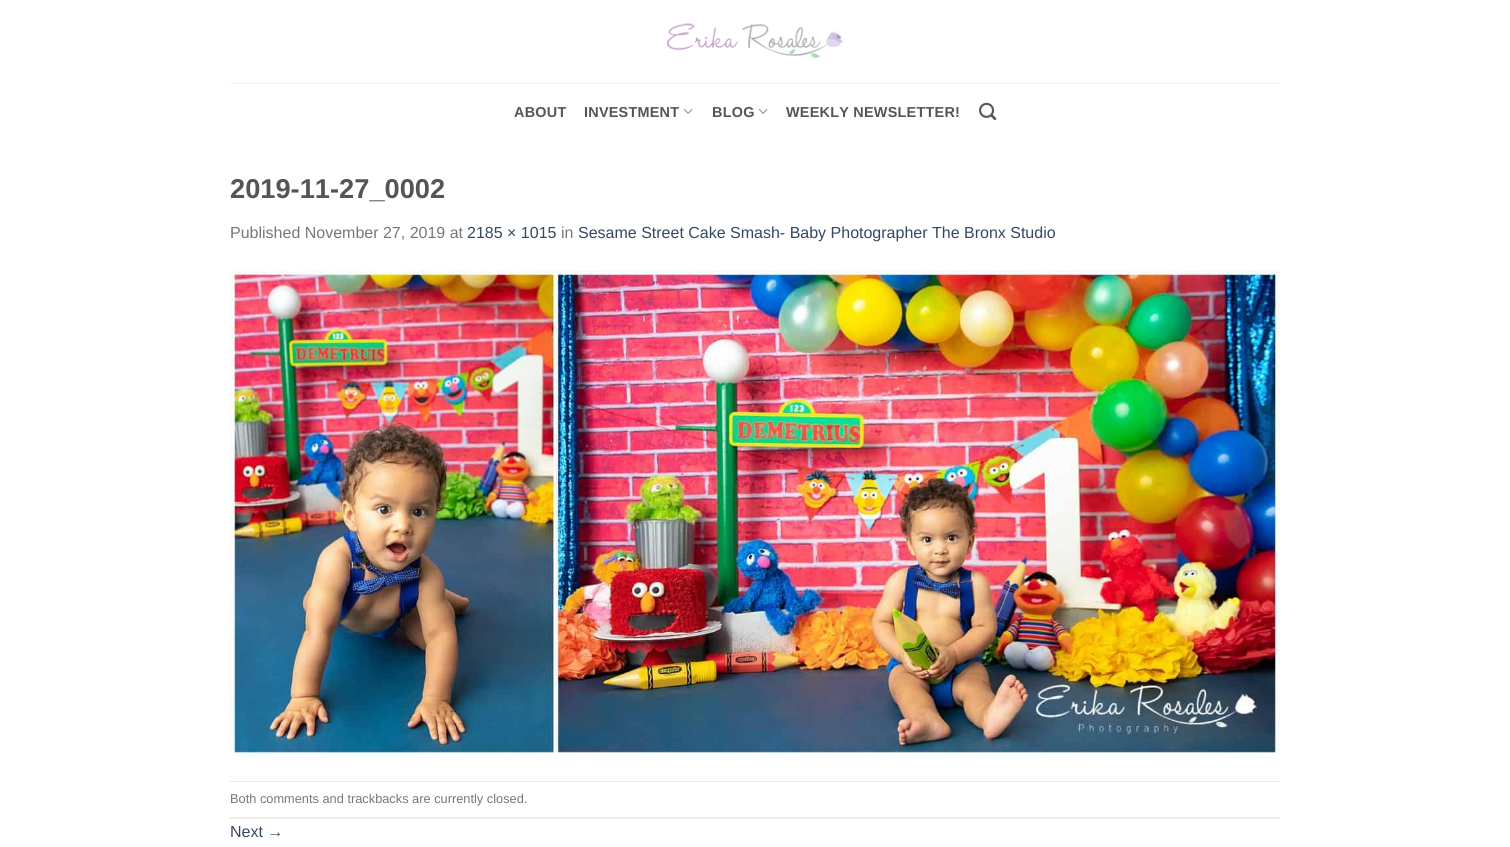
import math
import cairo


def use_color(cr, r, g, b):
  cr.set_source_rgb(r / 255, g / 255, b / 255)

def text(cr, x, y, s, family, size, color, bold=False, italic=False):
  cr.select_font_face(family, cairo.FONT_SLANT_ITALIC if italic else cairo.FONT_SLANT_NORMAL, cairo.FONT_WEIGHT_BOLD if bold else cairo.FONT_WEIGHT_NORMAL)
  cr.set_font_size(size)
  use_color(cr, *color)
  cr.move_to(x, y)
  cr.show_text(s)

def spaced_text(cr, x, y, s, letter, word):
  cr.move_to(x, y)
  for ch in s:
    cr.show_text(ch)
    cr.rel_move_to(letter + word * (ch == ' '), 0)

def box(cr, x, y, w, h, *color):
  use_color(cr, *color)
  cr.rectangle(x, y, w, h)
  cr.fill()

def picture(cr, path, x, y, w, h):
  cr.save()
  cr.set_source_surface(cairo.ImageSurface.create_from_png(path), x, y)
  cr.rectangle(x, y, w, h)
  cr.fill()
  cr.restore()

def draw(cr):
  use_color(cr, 255, 255, 255)
  cr.paint()
  picture(cr, "img_01.png", 667, 23, 176, 36)
  box(cr, 230, 83, 1050, 1, 241, 241, 241)
  picture(cr, "img_02.png", 683, 108, 10, 6)
  picture(cr, "img_02.png", 758, 108, 10, 6)
  picture(cr, "img_03.png", 979, 102, 18, 18)
  picture(cr, "img_04.png", 230, 270, 1050, 487)
  box(cr, 230, 781, 1050, 1, 236, 236, 236)
  box(cr, 230, 817, 1050, 2, 236, 236, 236)
  cr.select_font_face("Liberation Sans", cairo.FONT_SLANT_NORMAL, cairo.FONT_WEIGHT_BOLD)
  cr.set_font_size(14.4)
  use_color(cr, 85, 85, 85)
  spaced_text(cr, 514, 117, "ABOUT", 0.25, 0)
  spaced_text(cr, 584, 117, "INVESTMENT", 0.25, 0)
  spaced_text(cr, 712, 117, "BLOG", 0.25, 0)
  spaced_text(cr, 786, 117, "WEEKLY NEWSLETTER!", 0.25, 0)
  text(cr, 230, 198, "2019-11-27_0002", "Liberation Sans", 27.25, (85, 85, 85), bold=True)
  text(cr, 230, 238, "Published November 27, 2019 at", "Liberation Sans", 16, (119, 119, 119))
  text(cr, 467, 238, "2185 × 1015", "Liberation Sans", 16, (51, 72, 98))
  text(cr, 561, 238, "in", "Liberation Sans", 16, (119, 119, 119))
  text(cr, 578, 238, "Sesame Street Cake Smash- Baby Photographer The Bronx Studio", "Liberation Sans", 16, (51, 72, 98))
  text(cr, 230, 803, "Both comments and trackbacks are currently closed.", "Liberation Sans", 12.8, (119, 119, 119))
  text(cr, 230, 837, "Next →", "Liberation Sans", 16, (51, 72, 98))


surface = cairo.ImageSurface(cairo.FORMAT_RGB24, 1510, 847)
cr = cairo.Context(surface)
options = cairo.FontOptions()
options.set_hint_metrics(cairo.HINT_METRICS_OFF)
options.set_hint_style(cairo.HINT_STYLE_NONE)
cr.set_font_options(options)
cr.set_miter_limit(4)
draw(cr)
surface.write_to_png("out.png")
